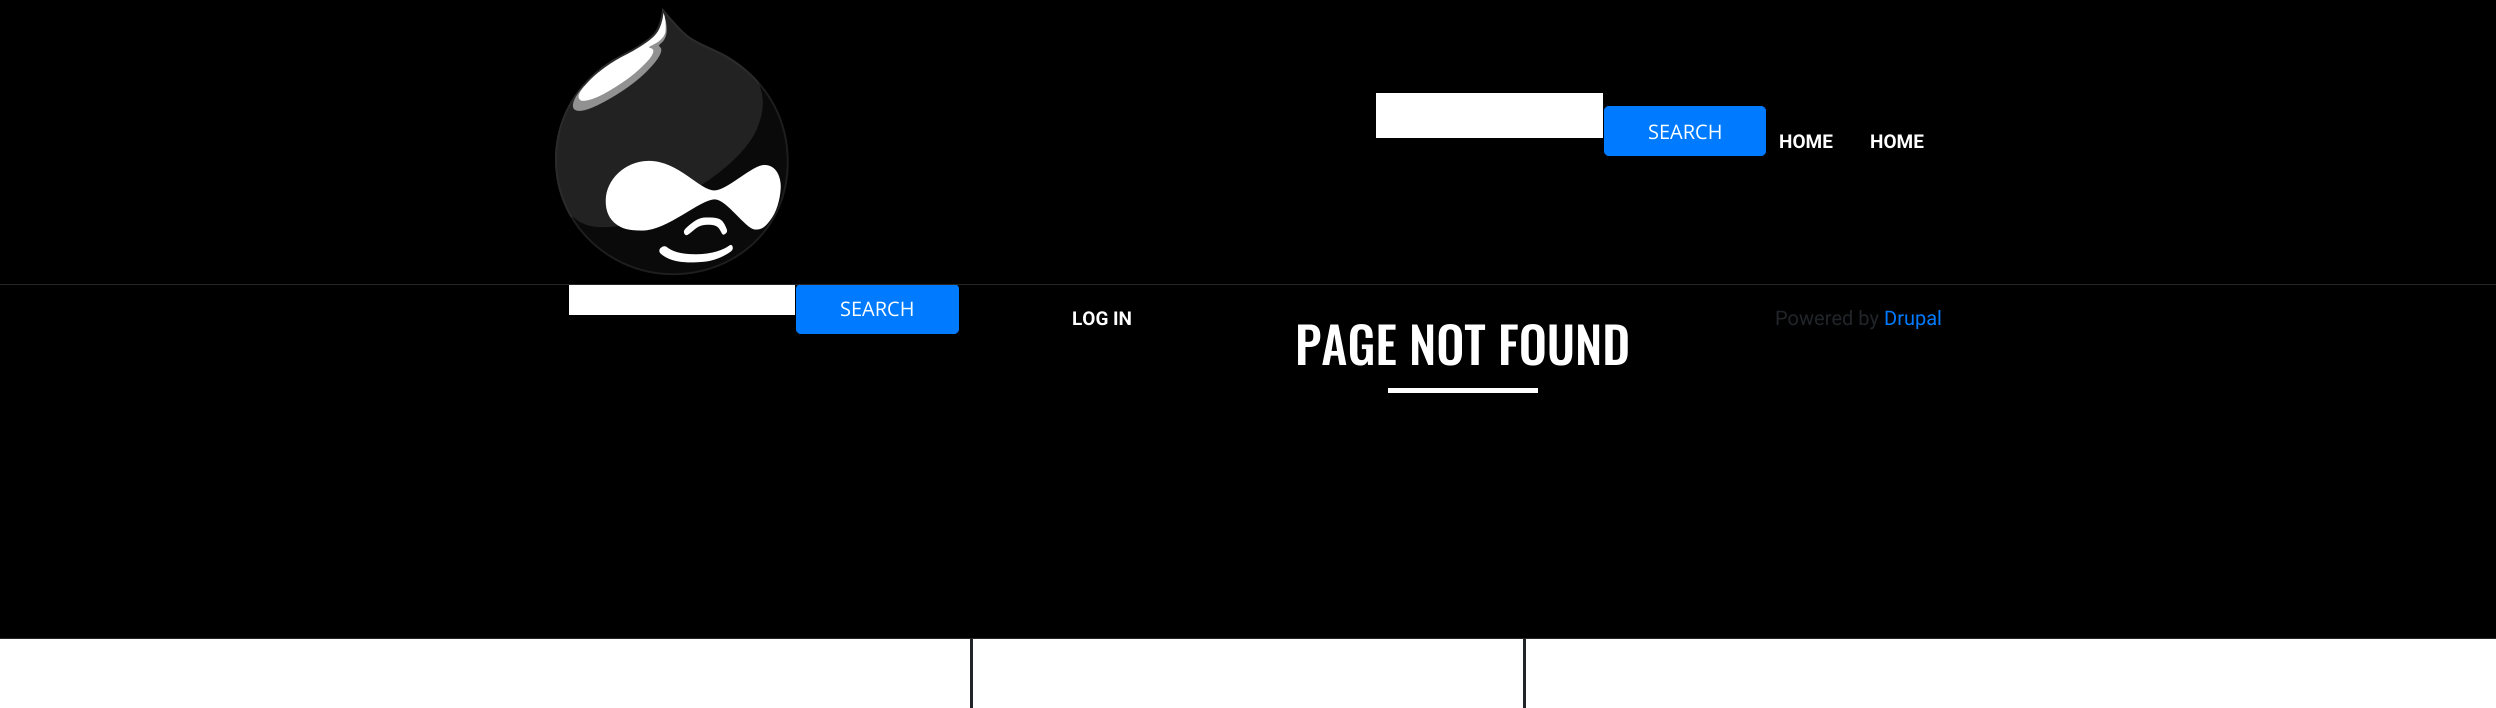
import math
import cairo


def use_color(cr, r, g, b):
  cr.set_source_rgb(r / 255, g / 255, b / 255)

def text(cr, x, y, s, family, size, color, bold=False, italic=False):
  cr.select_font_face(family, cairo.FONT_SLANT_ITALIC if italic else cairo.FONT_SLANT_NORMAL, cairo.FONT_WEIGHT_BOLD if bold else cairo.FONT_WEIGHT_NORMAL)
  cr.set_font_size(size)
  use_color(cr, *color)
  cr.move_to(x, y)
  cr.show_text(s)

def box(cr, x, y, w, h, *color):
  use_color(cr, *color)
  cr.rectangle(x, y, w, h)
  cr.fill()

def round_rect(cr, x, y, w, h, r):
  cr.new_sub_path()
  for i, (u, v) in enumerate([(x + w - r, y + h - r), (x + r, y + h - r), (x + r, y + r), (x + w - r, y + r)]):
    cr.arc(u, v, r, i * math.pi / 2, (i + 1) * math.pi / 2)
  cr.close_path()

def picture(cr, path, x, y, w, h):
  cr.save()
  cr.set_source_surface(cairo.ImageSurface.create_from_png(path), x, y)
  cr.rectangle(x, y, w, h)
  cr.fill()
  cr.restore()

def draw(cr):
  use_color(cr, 255, 255, 255)
  cr.paint()
  box(cr, 0, 0, 2496, 284, 0, 0, 0)
  cr.rectangle(971.5, 439.5, 553, 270)
  use_color(cr, 33, 37, 41)
  cr.set_line_width(3)
  cr.stroke()
  box(cr, 0, 285, 2496, 353, 0, 0, 0)
  use_color(cr, 0, 123, 255)
  round_rect(cr, 796.5, 284.5, 162, 49, 4.5)
  cr.fill_preserve()
  cr.set_line_width(1)
  cr.stroke()
  box(cr, 0, 284, 2496, 1, 38, 38, 38)
  picture(cr, "img_01.png", 555, 8, 234, 268)
  box(cr, 1376, 93, 227, 45, 255, 255, 255)
  use_color(cr, 0, 123, 255)
  round_rect(cr, 1604.5, 106.5, 161, 49, 4.5)
  cr.fill_preserve()
  cr.stroke()
  box(cr, 0, 638, 2496, 1, 38, 38, 38)
  box(cr, 569, 285, 226, 30, 255, 255, 255)
  box(cr, 1388, 388, 150, 5, 255, 255, 255)
  text(cr, 1648, 139, "SEARCH", "Open Sans", 20, (255, 255, 255))
  text(cr, 1779, 148, "HOME", "Roboto", 19, (255, 255, 255), bold=True)
  text(cr, 1870, 148, "HOME", "Roboto", 19, (255, 255, 255), bold=True)
  text(cr, 840, 316, "SEARCH", "Open Sans", 20, (255, 255, 255))
  text(cr, 1072, 325, "LOG IN", "Roboto", 19, (255, 255, 255), bold=True)
  text(cr, 1775, 325, "Powered by", "Roboto", 20, (33, 37, 41))
  text(cr, 1884, 325, "Drupal", "Roboto", 20, (0, 123, 255))
  text(cr, 1295, 365, "PAGE NOT FOUND", "Oswald Medium", 50, (255, 255, 255))


surface = cairo.ImageSurface(cairo.FORMAT_RGB24, 2496, 708)
cr = cairo.Context(surface)
options = cairo.FontOptions()
options.set_hint_metrics(cairo.HINT_METRICS_OFF)
options.set_hint_style(cairo.HINT_STYLE_NONE)
cr.set_font_options(options)
cr.set_miter_limit(4)
draw(cr)
surface.write_to_png("out.png")
